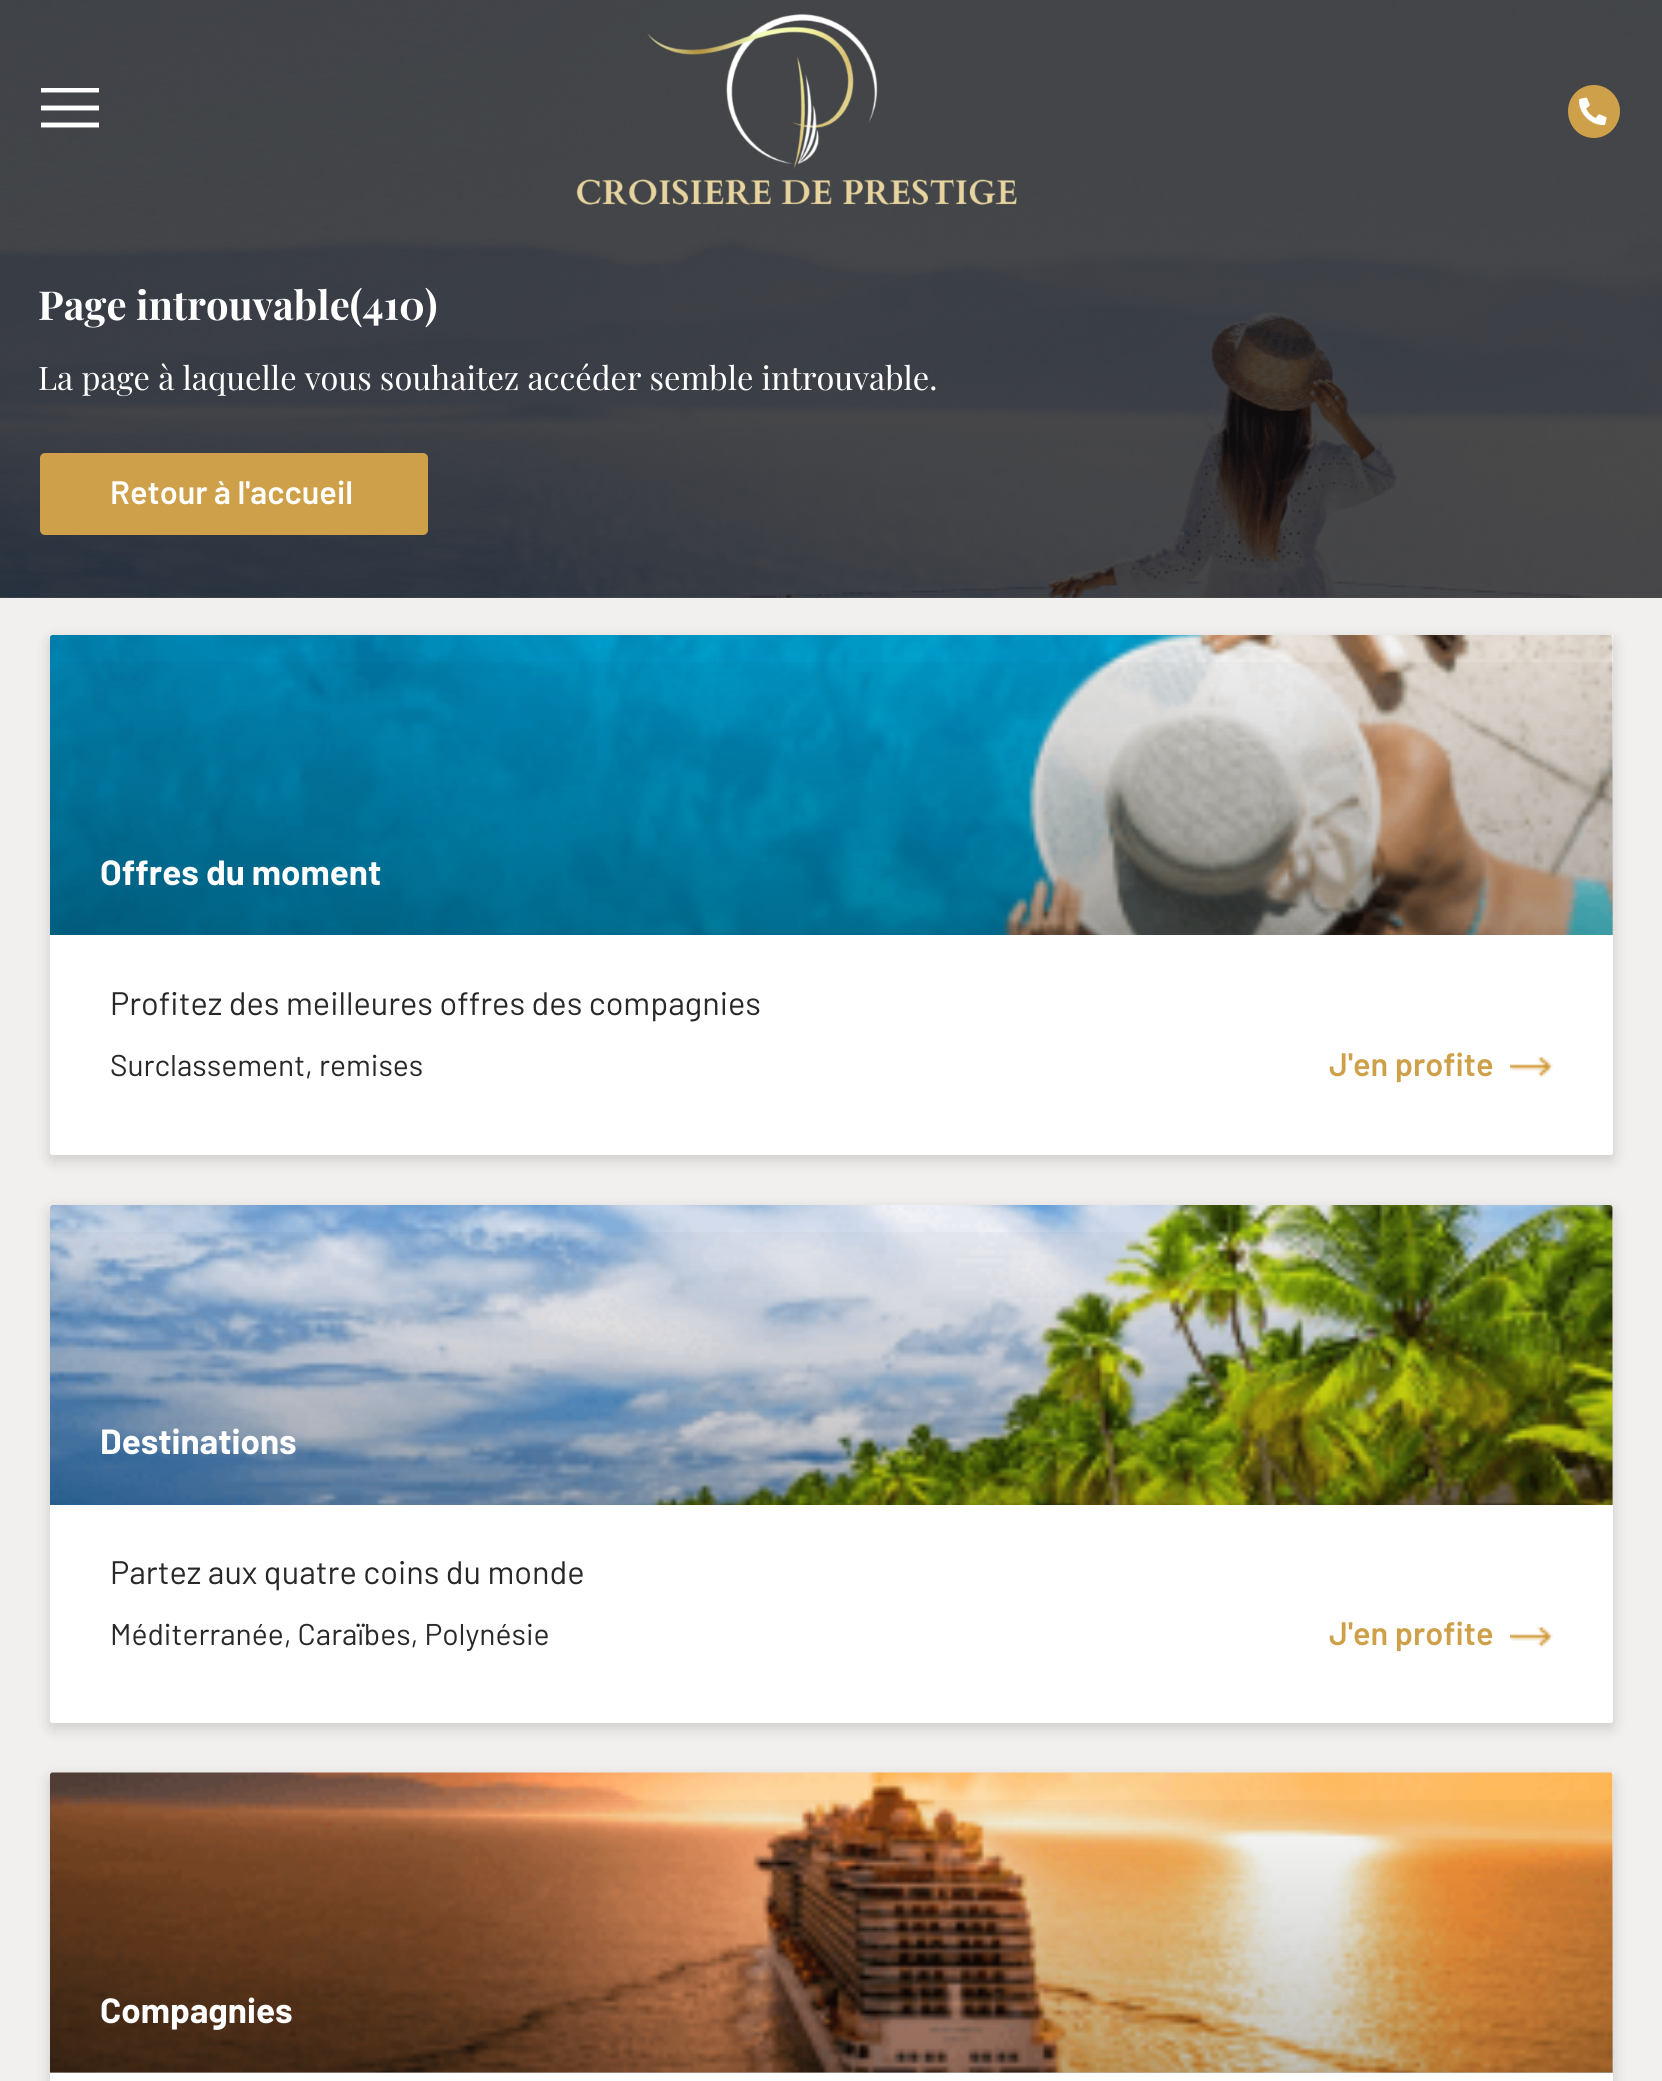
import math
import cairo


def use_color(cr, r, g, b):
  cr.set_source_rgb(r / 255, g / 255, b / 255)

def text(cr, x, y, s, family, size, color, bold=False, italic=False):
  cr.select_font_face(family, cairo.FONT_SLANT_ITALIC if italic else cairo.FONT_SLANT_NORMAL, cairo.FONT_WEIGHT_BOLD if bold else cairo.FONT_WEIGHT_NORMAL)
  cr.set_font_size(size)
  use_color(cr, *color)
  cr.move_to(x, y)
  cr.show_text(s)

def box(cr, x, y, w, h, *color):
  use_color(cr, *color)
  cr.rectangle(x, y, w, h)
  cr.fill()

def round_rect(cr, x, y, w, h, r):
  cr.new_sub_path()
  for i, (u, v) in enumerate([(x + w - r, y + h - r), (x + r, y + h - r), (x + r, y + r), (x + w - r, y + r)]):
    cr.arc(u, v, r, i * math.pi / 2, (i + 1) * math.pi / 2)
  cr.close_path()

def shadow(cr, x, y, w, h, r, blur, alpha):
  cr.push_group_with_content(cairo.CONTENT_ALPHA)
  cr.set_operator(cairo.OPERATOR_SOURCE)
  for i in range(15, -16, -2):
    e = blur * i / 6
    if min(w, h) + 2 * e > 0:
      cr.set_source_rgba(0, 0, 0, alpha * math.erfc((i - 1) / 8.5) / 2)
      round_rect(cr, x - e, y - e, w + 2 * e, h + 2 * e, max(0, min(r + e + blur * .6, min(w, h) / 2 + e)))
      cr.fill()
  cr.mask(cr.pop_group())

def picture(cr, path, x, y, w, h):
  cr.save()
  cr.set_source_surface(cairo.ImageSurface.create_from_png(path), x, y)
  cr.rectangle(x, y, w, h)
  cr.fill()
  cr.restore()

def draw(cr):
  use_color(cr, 77, 77, 77)
  cr.paint()
  picture(cr, "img_03.png", 0, 0, 1662, 598)
  cr.save()
  cr.rectangle(40, 88, 60, 40)
  cr.clip()
  cr.new_path()
  cr.move_to(41, 90)
  cr.line_to(99, 90)
  use_color(cr, 255, 255, 255)
  cr.set_line_width(4.9)
  cr.stroke()
  cr.restore()
  cr.new_path()
  cr.move_to(41, 108)
  cr.line_to(99, 108)
  cr.move_to(41, 125)
  cr.line_to(99, 125)
  use_color(cr, 255, 255, 255)
  cr.set_line_width(4.9)
  cr.stroke()
  picture(cr, "img_01.png", 576, 13, 441, 192)
  use_color(cr, 206, 160, 73)
  cr.new_path()
  cr.move_to(1620, 111)
  cr.curve_to(1620, 126, 1608, 138, 1594, 138)
  cr.curve_to(1579, 138, 1568, 126, 1568, 111)
  cr.curve_to(1568, 97, 1579, 85, 1594, 85)
  cr.curve_to(1608, 85, 1620, 97, 1620, 111)
  cr.close_path()
  cr.fill()
  picture(cr, "img_02.png", 1579, 97, 28, 29)
  round_rect(cr, 40, 453, 388, 82, 5)
  cr.fill()
  box(cr, 0, 598, 1662, 1483, 241, 240, 238)
  use_color(cr, 0, 0, 0)
  shadow(cr, 50, 640, 1563, 520, 2.5, 7.5, 0.16)
  use_color(cr, 255, 255, 255)
  cr.new_path()
  cr.move_to(50, 635)
  cr.line_to(1613, 635)
  cr.line_to(1613, 1152.5)
  cr.curve_to(1613, 1154, 1612, 1155, 1610.5, 1155)
  cr.line_to(52.5, 1155)
  cr.curve_to(51, 1155, 50, 1154, 50, 1152.5)
  cr.close_path()
  cr.fill()
  picture(cr, "img_04.png", 50, 635, 1563, 300)
  gradient = cairo.LinearGradient(831, 935, 831, 635)
  gradient.add_color_stop_rgba(0, 0, 0, 0, 0.25)
  gradient.add_color_stop_rgba(0.5, 0, 0, 0, 0.12)
  gradient.add_color_stop_rgba(1, 0, 0, 0, 0)
  cr.set_source(gradient)
  cr.rectangle(50, 662, 1563, 273)
  cr.fill()
  picture(cr, "img_05.png", 1510, 1057, 43, 21)
  use_color(cr, 0, 0, 0)
  shadow(cr, 50, 1210, 1563, 518, 2.5, 7.5, 0.16)
  use_color(cr, 255, 255, 255)
  cr.new_path()
  cr.move_to(50, 1205)
  cr.line_to(1613, 1205)
  cr.line_to(1613, 1720.5)
  cr.curve_to(1613, 1722, 1612, 1723, 1610.5, 1723)
  cr.line_to(52.5, 1723)
  cr.curve_to(51, 1723, 50, 1722, 50, 1720.5)
  cr.close_path()
  cr.fill()
  picture(cr, "img_06.png", 50, 1205, 1563, 300)
  gradient = cairo.LinearGradient(831, 1505, 831, 1205)
  gradient.add_color_stop_rgba(0, 0, 0, 0, 0.25)
  gradient.add_color_stop_rgba(0.5, 0, 0, 0, 0.12)
  gradient.add_color_stop_rgba(1, 0, 0, 0, 0)
  cr.set_source(gradient)
  cr.rectangle(50, 1232, 1563, 273)
  cr.fill()
  picture(cr, "img_05.png", 1510, 1627, 43, 21)
  use_color(cr, 0, 0, 0)
  shadow(cr, 50, 1778, 1563, 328, 2.5, 7.5, 0.16)
  box(cr, 50, 1773, 1563, 308, 255, 255, 255)
  picture(cr, "img_07.png", 50, 1772, 1563, 301)
  gradient = cairo.LinearGradient(831, 2073, 831, 1773)
  gradient.add_color_stop_rgba(0, 0, 0, 0, 0.25)
  gradient.add_color_stop_rgba(0.5, 0, 0, 0, 0.12)
  gradient.add_color_stop_rgba(1, 0, 0, 0, 0)
  cr.set_source(gradient)
  cr.rectangle(50, 1800, 1563, 273)
  cr.fill()
  text(cr, 38, 320, "Page introuvable(410)", "Playfair Display", 40, (255, 255, 255), bold=True)
  text(cr, 38, 390, "La page à laquelle vous souhaitez accéder semble introuvable.", "Playfair Display", 32.5, (255, 255, 255))
  text(cr, 110, 504, "Retour à l'accueil", "Barlow SemiBold", 32.5, (255, 255, 255))
  text(cr, 100, 885, "Offres du moment", "Barlow", 35, (255, 255, 255), bold=True)
  text(cr, 110, 1015, "Profitez des meilleures offres des compagnies", "Barlow", 32.5, (40, 40, 40))
  text(cr, 110, 1076, "Surclassement, remises", "Barlow", 30, (40, 40, 40))
  text(cr, 1329, 1076, "J'en profite", "Barlow SemiBold", 32.5, (206, 160, 73))
  text(cr, 100, 1454, "Destinations", "Barlow", 35, (255, 255, 255), bold=True)
  text(cr, 110, 1584, "Partez aux quatre coins du monde", "Barlow", 32.5, (40, 40, 40))
  text(cr, 110, 1645, "Méditerranée, Caraïbes, Polynésie", "Barlow", 30, (40, 40, 40))
  text(cr, 1329, 1645, "J'en profite", "Barlow SemiBold", 32.5, (206, 160, 73))
  text(cr, 100, 2023, "Compagnies", "Barlow", 35, (255, 255, 255), bold=True)


surface = cairo.ImageSurface(cairo.FORMAT_RGB24, 1662, 2081)
cr = cairo.Context(surface)
options = cairo.FontOptions()
options.set_hint_metrics(cairo.HINT_METRICS_OFF)
options.set_hint_style(cairo.HINT_STYLE_NONE)
cr.set_font_options(options)
cr.set_miter_limit(4)
draw(cr)
surface.write_to_png("out.png")
